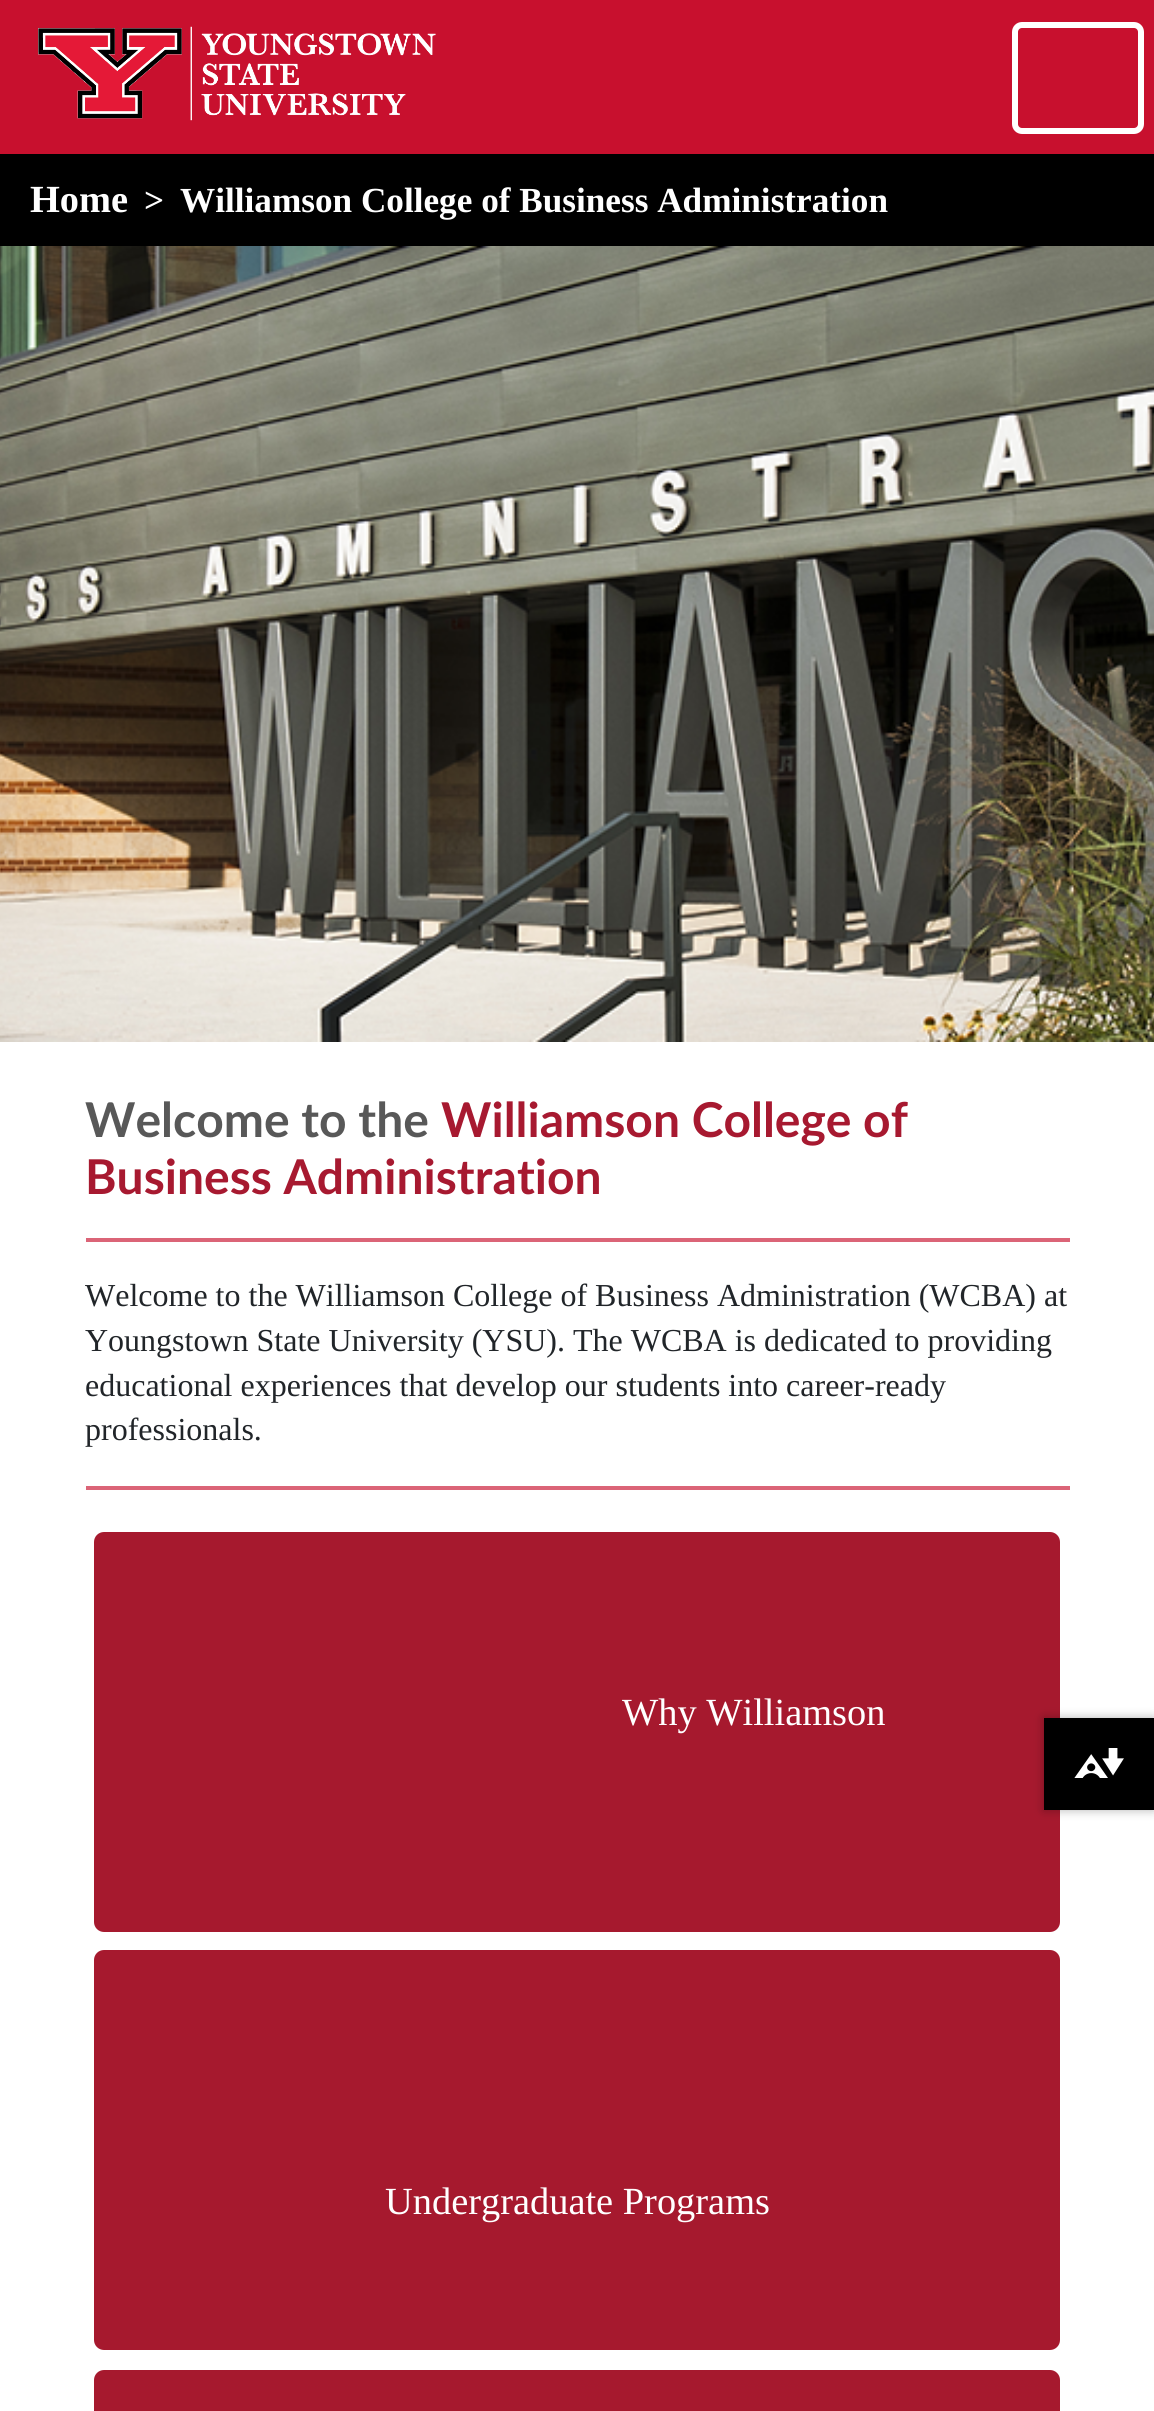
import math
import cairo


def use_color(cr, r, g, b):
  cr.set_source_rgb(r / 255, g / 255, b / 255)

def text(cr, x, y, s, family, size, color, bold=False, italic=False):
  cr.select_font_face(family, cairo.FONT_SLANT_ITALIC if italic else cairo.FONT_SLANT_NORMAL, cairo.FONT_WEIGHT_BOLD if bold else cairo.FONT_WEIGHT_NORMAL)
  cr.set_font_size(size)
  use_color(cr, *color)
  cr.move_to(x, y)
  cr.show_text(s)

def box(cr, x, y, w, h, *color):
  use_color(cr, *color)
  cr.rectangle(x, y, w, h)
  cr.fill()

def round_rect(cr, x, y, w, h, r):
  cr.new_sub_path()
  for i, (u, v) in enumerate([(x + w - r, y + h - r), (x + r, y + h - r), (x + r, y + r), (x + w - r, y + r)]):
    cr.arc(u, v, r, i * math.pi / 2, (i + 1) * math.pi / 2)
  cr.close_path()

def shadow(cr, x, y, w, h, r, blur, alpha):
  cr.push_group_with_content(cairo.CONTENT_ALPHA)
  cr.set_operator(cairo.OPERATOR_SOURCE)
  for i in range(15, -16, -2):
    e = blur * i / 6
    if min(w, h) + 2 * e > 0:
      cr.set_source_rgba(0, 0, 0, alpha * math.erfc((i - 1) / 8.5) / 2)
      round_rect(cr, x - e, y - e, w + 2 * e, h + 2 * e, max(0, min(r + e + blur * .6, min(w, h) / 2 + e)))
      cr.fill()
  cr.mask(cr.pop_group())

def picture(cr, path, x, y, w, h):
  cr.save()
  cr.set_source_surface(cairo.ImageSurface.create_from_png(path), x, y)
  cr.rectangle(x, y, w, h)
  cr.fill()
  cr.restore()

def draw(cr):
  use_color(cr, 255, 255, 255)
  cr.paint()
  box(cr, 0, 0, 1154, 154, 200, 16, 46)
  picture(cr, "img_01.png", 38, 26, 398, 95)
  round_rect(cr, 1015, 25, 126, 106, 7)
  use_color(cr, 255, 255, 255)
  cr.set_line_width(6)
  cr.stroke()
  box(cr, 0, 154, 1154, 92, 0, 0, 0)
  picture(cr, "img_02.png", 0, 246, 1154, 796)
  box(cr, 86, 1238, 984, 4, 219, 100, 119)
  box(cr, 86, 1486, 984, 4, 219, 100, 119)
  use_color(cr, 166, 25, 46)
  round_rect(cr, 94, 1532, 966, 400, 10)
  cr.fill()
  round_rect(cr, 94, 1950, 966, 400, 10)
  cr.fill()
  cr.new_path()
  cr.move_to(104, 2370)
  cr.line_to(1050, 2370)
  cr.curve_to(1055.5, 2370, 1060, 2374.5, 1060, 2380)
  cr.line_to(1060, 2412)
  cr.line_to(94, 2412)
  cr.line_to(94, 2380)
  cr.curve_to(94, 2374.5, 98.5, 2370, 104, 2370)
  cr.close_path()
  cr.fill()
  use_color(cr, 0, 0, 0)
  shadow(cr, 1044, 1718, 110, 92, 0, 5, 0.3)
  box(cr, 1044, 1718, 110, 92, 0, 0, 0)
  picture(cr, "img_03.png", 1074, 1748, 50, 30)
  text(cr, 30, 212, "Home", "Liberation Serif", 38.4, (255, 255, 255), bold=True)
  text(cr, 144, 212, ">", "Liberation Serif", 35.2, (255, 255, 255), bold=True)
  text(cr, 180, 212, "Williamson College of Business Administration", "Liberation Serif", 35.2, (255, 255, 255), bold=True)
  text(cr, 85, 1137, "Welcome to the", "Lato", 48, (88, 88, 88), bold=True)
  text(cr, 441, 1137, "Williamson College of", "Lato", 48, (167, 25, 48), bold=True)
  text(cr, 85, 1194, "Business Administration", "Lato", 48, (167, 25, 48), bold=True)
  text(cr, 85, 1306, "Welcome to the Williamson College of Business Administration (WCBA) at", "Liberation Serif", 32, (33, 37, 41))
  text(cr, 85, 1351, "Youngstown State University (YSU). The WCBA is dedicated to providing", "Liberation Serif", 32, (33, 37, 41))
  text(cr, 85, 1396, "educational experiences that develop our students into career-ready", "Liberation Serif", 32, (33, 37, 41))
  text(cr, 85, 1440, "professionals.", "Liberation Serif", 32, (33, 37, 41))
  text(cr, 622, 1725, "Why Williamson", "Liberation Serif", 38.4, (255, 255, 255))
  text(cr, 385, 2214, "Undergraduate Programs", "Liberation Serif", 38.4, (255, 255, 255))


surface = cairo.ImageSurface(cairo.FORMAT_RGB24, 1154, 2411)
cr = cairo.Context(surface)
options = cairo.FontOptions()
options.set_hint_metrics(cairo.HINT_METRICS_OFF)
options.set_hint_style(cairo.HINT_STYLE_NONE)
cr.set_font_options(options)
cr.set_miter_limit(4)
draw(cr)
surface.write_to_png("out.png")
